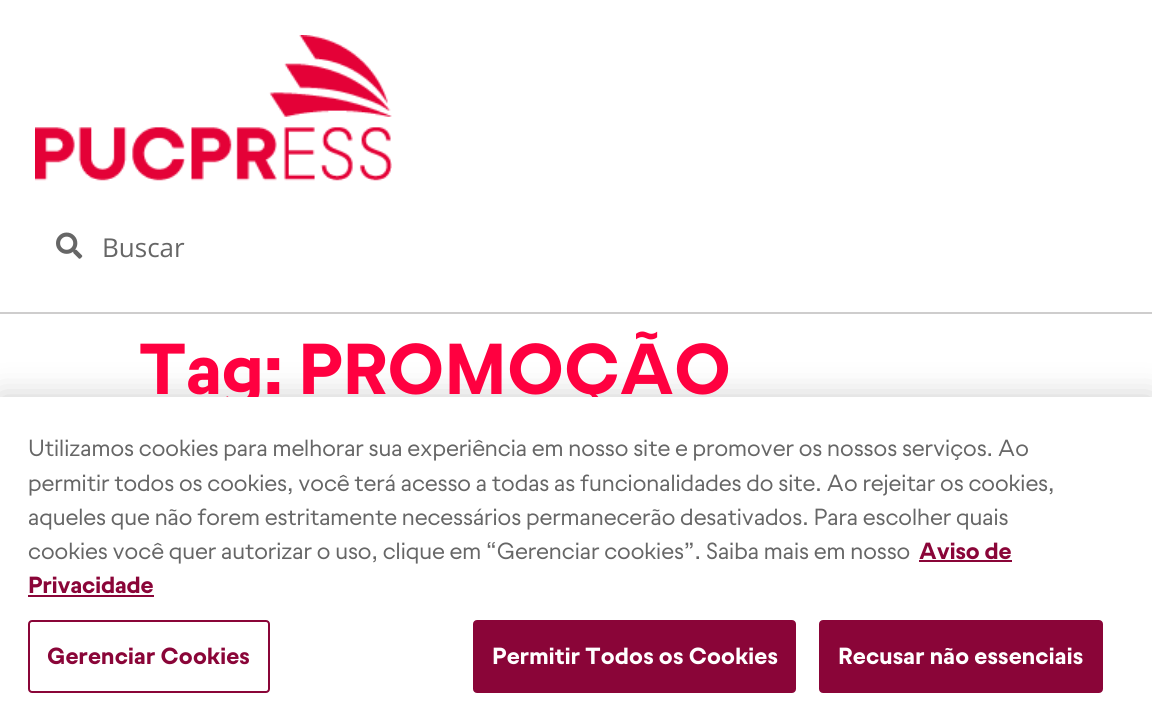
import math
import cairo


def use_color(cr, r, g, b):
  cr.set_source_rgb(r / 255, g / 255, b / 255)

def text(cr, x, y, s, family, size, color, bold=False, italic=False):
  cr.select_font_face(family, cairo.FONT_SLANT_ITALIC if italic else cairo.FONT_SLANT_NORMAL, cairo.FONT_WEIGHT_BOLD if bold else cairo.FONT_WEIGHT_NORMAL)
  cr.set_font_size(size)
  use_color(cr, *color)
  cr.move_to(x, y)
  cr.show_text(s)

def spaced_text(cr, x, y, s, letter, word):
  cr.move_to(x, y)
  for ch in s:
    cr.show_text(ch)
    cr.rel_move_to(letter + word * (ch == ' '), 0)

def box(cr, x, y, w, h, *color):
  use_color(cr, *color)
  cr.rectangle(x, y, w, h)
  cr.fill()

def round_rect(cr, x, y, w, h, r):
  cr.new_sub_path()
  for i, (u, v) in enumerate([(x + w - r, y + h - r), (x + r, y + h - r), (x + r, y + r), (x + w - r, y + r)]):
    cr.arc(u, v, r, i * math.pi / 2, (i + 1) * math.pi / 2)
  cr.close_path()

def shadow(cr, x, y, w, h, r, blur, alpha):
  cr.push_group_with_content(cairo.CONTENT_ALPHA)
  cr.set_operator(cairo.OPERATOR_SOURCE)
  for i in range(15, -16, -2):
    e = blur * i / 6
    if min(w, h) + 2 * e > 0:
      cr.set_source_rgba(0, 0, 0, alpha * math.erfc((i - 1) / 8.5) / 2)
      round_rect(cr, x - e, y - e, w + 2 * e, h + 2 * e, max(0, min(r + e + blur * .6, min(w, h) / 2 + e)))
      cr.fill()
  cr.mask(cr.pop_group())

def picture(cr, path, x, y, w, h):
  cr.save()
  cr.set_source_surface(cairo.ImageSurface.create_from_png(path), x, y)
  cr.rectangle(x, y, w, h)
  cr.fill()
  cr.restore()

def draw(cr):
  use_color(cr, 255, 255, 255)
  cr.paint()
  box(cr, 0, 312, 1152, 2, 206, 205, 205)
  picture(cr, "img_01.png", 35, 35, 357, 146)
  picture(cr, "img_02.png", 56, 232, 27, 27)
  use_color(cr, 0, 0, 0)
  shadow(cr, 0, 397, 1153, 329, 0, 16, 0.2)
  text(cr, 102, 257, "Buscar", "Open Sans", 26, (102, 102, 102))
  text(cr, 139, 394, "Tag: PROMOÇÃO", "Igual", 70, (255, 0, 64), bold=True)
  box(cr, 0, 397, 1152, 329, 255, 255, 255)
  text(cr, 28, 456, "Utilizamos cookies para melhorar sua experiência em nosso site e promover os nossos serviços. Ao", "Igual", 22.75, (102, 102, 102))
  text(cr, 28, 491, "permitir todos os cookies, você terá acesso a todas as funcionalidades do site. Ao rejeitar os cookies,", "Igual", 22.75, (102, 102, 102))
  text(cr, 28, 525, "aqueles que não forem estritamente necessários permanecerão desativados. Para escolher quais", "Igual", 22.75, (102, 102, 102))
  text(cr, 28, 559, "cookies você quer autorizar o uso, clique em “Gerenciar cookies”. Saiba mais em nosso", "Igual", 22.75, (102, 102, 102))
  text(cr, 919, 559, "Aviso de", "Igual", 22.75, (138, 5, 56), bold=True)
  box(cr, 919, 560, 93, 2, 138, 5, 56)
  text(cr, 28, 593, "Privacidade", "Igual", 22.75, (138, 5, 56), bold=True)
  box(cr, 28, 595, 126, 2, 138, 5, 56)
  round_rect(cr, 29, 621, 240, 71, 3)
  cr.stroke()
  spaced_text(cr, 47, 664, "Gerenciar Cookies", 0.25, 0)
  round_rect(cr, 474, 621, 321, 71, 3)
  cr.fill_preserve()
  cr.stroke()
  use_color(cr, 255, 255, 255)
  spaced_text(cr, 492, 664, "Permitir Todos os Cookies", 0.25, 0)
  use_color(cr, 138, 5, 56)
  round_rect(cr, 820, 621, 282, 71, 3)
  cr.fill_preserve()
  cr.stroke()
  use_color(cr, 255, 255, 255)
  spaced_text(cr, 838, 664, "Recusar não essenciais", 0.25, 0)


surface = cairo.ImageSurface(cairo.FORMAT_RGB24, 1152, 726)
cr = cairo.Context(surface)
options = cairo.FontOptions()
options.set_hint_metrics(cairo.HINT_METRICS_OFF)
options.set_hint_style(cairo.HINT_STYLE_NONE)
cr.set_font_options(options)
cr.set_miter_limit(4)
draw(cr)
surface.write_to_png("out.png")
